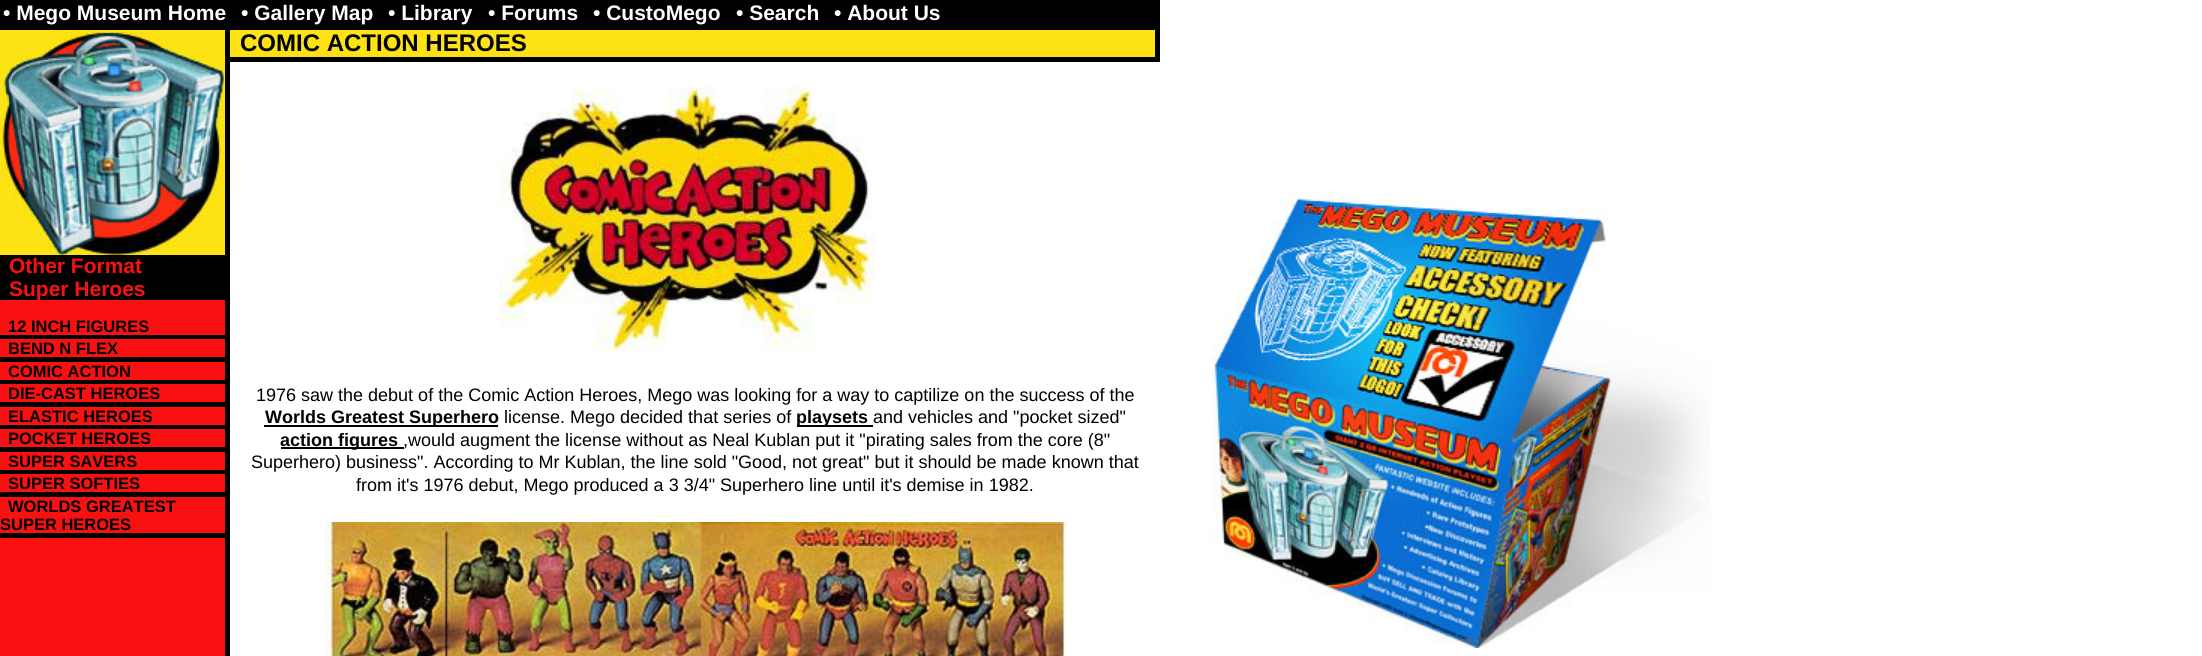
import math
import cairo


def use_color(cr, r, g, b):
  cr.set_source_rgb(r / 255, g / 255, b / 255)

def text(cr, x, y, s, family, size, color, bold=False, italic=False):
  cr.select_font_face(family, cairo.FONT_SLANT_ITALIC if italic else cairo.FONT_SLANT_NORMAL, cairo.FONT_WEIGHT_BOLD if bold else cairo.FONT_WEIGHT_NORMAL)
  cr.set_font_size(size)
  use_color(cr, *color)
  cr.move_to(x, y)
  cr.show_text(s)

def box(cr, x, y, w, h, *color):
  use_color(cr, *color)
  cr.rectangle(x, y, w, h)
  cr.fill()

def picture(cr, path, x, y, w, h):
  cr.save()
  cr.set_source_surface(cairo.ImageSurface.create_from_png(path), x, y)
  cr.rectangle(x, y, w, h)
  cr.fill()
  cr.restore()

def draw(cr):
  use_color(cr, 255, 255, 255)
  cr.paint()
  picture(cr, "img_01.png", 1212, 198, 499, 450)
  box(cr, 0, 0, 1160, 30, 0, 0, 0)
  box(cr, 0, 300, 225, 356, 249, 17, 17)
  box(cr, 1155, 30, 5, 32, 0, 0, 0)
  box(cr, 225, 57, 935, 5, 0, 0, 0)
  box(cr, 225, 30, 5, 626, 0, 0, 0)
  picture(cr, "img_02.png", 0, 30, 225, 225)
  box(cr, 0, 255, 225, 45, 0, 0, 0)
  box(cr, 0, 335, 225, 4, 0, 0, 0)
  box(cr, 0, 357, 225, 5, 0, 0, 0)
  box(cr, 0, 380, 225, 4, 0, 0, 0)
  box(cr, 0, 402, 225, 5, 0, 0, 0)
  box(cr, 0, 425, 225, 4, 0, 0, 0)
  box(cr, 0, 447, 225, 5, 0, 0, 0)
  box(cr, 0, 470, 225, 4, 0, 0, 0)
  box(cr, 0, 492, 225, 5, 0, 0, 0)
  box(cr, 0, 533, 225, 5, 0, 0, 0)
  box(cr, 230, 30, 925, 27, 253, 227, 20)
  picture(cr, "img_03.png", 499, 87, 376, 264)
  box(cr, 264, 425, 234, 2, 0, 0, 0)
  box(cr, 797, 425, 76, 2, 0, 0, 0)
  box(cr, 281, 447, 123, 2, 0, 0, 0)
  picture(cr, "img_04.png", 324, 522, 743, 134)
  text(cr, 3, 20, "• Mego Museum Home", "Liberation Sans", 21, (255, 255, 255), bold=True)
  text(cr, 241, 20, "• Gallery Map", "Liberation Sans", 21, (255, 255, 255), bold=True)
  text(cr, 388, 20, "• Library", "Liberation Sans", 21, (255, 255, 255), bold=True)
  text(cr, 488, 20, "• Forums", "Liberation Sans", 21, (255, 255, 255), bold=True)
  text(cr, 593, 20, "• CustoMego", "Liberation Sans", 21, (255, 255, 255), bold=True)
  text(cr, 736, 20, "• Search", "Liberation Sans", 21, (255, 255, 255), bold=True)
  text(cr, 834, 20, "• About Us", "Liberation Sans", 21, (255, 255, 255), bold=True)
  text(cr, 9, 273, "Other Format", "Liberation Sans", 21, (249, 17, 17), bold=True)
  text(cr, 9, 296, "Super Heroes", "Liberation Sans", 21, (249, 17, 17), bold=True)
  text(cr, 8, 332, "12 INCH FIGURES", "Liberation Sans", 16.5, (0, 0, 0), bold=True)
  text(cr, 8, 354, "BEND N FLEX", "Liberation Sans", 16.5, (0, 0, 0), bold=True)
  text(cr, 8, 377, "COMIC ACTION", "Liberation Sans", 16.5, (0, 0, 0), bold=True)
  text(cr, 8, 399, "DIE-CAST HEROES", "Liberation Sans", 16.5, (0, 0, 0), bold=True)
  text(cr, 8, 422, "ELASTIC HEROES", "Liberation Sans", 16.5, (0, 0, 0), bold=True)
  text(cr, 8, 444, "POCKET HEROES", "Liberation Sans", 16.5, (0, 0, 0), bold=True)
  text(cr, 8, 467, "SUPER SAVERS", "Liberation Sans", 16.5, (0, 0, 0), bold=True)
  text(cr, 8, 489, "SUPER SOFTIES", "Liberation Sans", 16.5, (0, 0, 0), bold=True)
  text(cr, 8, 512, "WORLDS GREATEST", "Liberation Sans", 16.5, (0, 0, 0), bold=True)
  text(cr, 0, 530, "SUPER HEROES", "Liberation Sans", 16.5, (0, 0, 0), bold=True)
  text(cr, 240, 51, "COMIC ACTION HEROES", "Liberation Sans", 24, (0, 0, 0), bold=True)
  text(cr, 256, 401, "1976 saw the debut of the Comic Action Heroes, Mego was looking for a way to captilize on the success of the", "Liberation Sans", 18, (0, 0, 0))
  text(cr, 265, 423, "Worlds Greatest Superhero", "Liberation Sans", 18, (0, 0, 0), bold=True)
  text(cr, 504, 423, "license. Mego decided that series of", "Liberation Sans", 18, (0, 0, 0))
  text(cr, 796, 423, "playsets", "Liberation Sans", 18, (0, 0, 0), bold=True)
  text(cr, 873, 423, "and vehicles and \"pocket sized\"", "Liberation Sans", 18, (0, 0, 0))
  text(cr, 280, 446, "action figures", "Liberation Sans", 18, (0, 0, 0), bold=True)
  text(cr, 403, 446, ",would augment the license without as Neal Kublan put it \"pirating sales from the core (8\"", "Liberation Sans", 18, (0, 0, 0))
  text(cr, 251, 468, "Superhero) business\". According to Mr Kublan, the line sold \"Good, not great\" but it should be made known that", "Liberation Sans", 18, (0, 0, 0))
  text(cr, 356, 491, "from it's 1976 debut, Mego produced a 3 3/4\" Superhero line until it's demise in 1982.", "Liberation Sans", 18, (0, 0, 0))


surface = cairo.ImageSurface(cairo.FORMAT_RGB24, 2202, 656)
cr = cairo.Context(surface)
options = cairo.FontOptions()
options.set_hint_metrics(cairo.HINT_METRICS_OFF)
options.set_hint_style(cairo.HINT_STYLE_NONE)
cr.set_font_options(options)
cr.set_miter_limit(4)
draw(cr)
surface.write_to_png("out.png")
